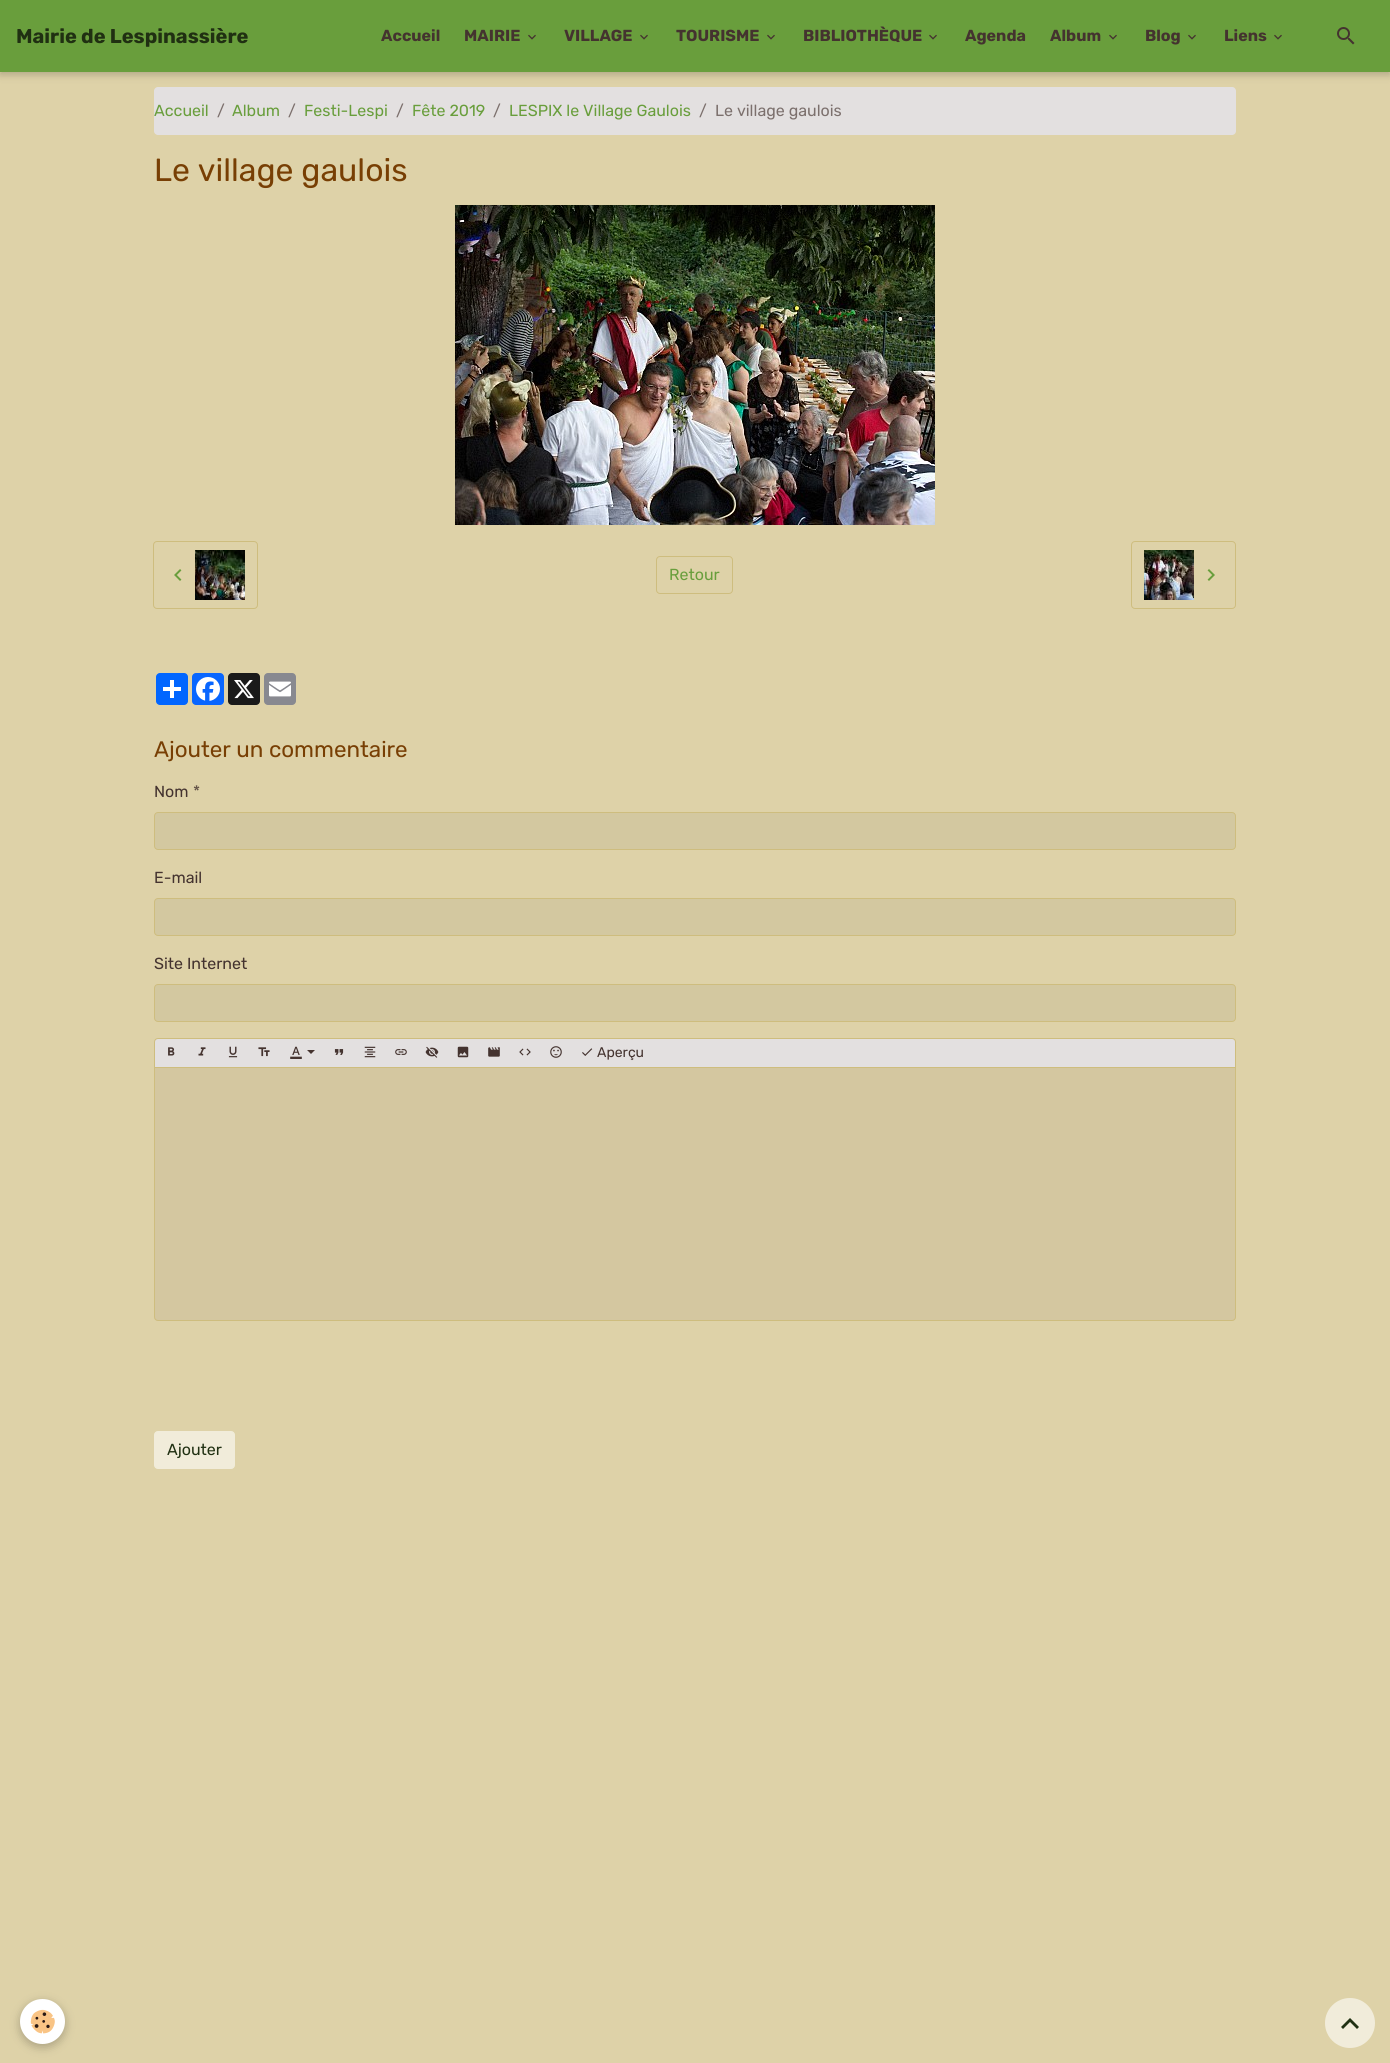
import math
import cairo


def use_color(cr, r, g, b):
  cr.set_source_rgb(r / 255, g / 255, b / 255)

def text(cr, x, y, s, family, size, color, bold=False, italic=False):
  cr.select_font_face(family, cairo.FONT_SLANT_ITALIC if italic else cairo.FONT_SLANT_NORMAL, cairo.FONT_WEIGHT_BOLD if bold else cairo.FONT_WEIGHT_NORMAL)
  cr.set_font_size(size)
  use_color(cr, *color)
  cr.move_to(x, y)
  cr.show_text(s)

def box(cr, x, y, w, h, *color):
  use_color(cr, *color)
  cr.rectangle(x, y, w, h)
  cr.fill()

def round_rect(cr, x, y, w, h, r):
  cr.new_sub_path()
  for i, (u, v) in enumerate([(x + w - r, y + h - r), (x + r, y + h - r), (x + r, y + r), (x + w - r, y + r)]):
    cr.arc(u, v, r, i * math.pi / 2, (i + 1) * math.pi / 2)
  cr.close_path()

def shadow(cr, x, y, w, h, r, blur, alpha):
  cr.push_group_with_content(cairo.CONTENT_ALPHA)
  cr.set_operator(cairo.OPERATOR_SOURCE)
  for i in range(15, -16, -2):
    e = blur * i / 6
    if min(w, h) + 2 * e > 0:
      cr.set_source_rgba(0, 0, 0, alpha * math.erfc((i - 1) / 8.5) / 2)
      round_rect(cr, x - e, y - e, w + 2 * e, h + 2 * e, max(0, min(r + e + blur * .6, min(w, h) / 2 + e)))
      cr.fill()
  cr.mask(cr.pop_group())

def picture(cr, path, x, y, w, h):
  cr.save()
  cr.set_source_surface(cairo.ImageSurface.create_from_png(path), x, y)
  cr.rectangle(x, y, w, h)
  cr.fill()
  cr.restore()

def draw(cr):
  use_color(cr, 222, 210, 168)
  cr.paint()
  use_color(cr, 227, 224, 224)
  round_rect(cr, 154, 87, 1082, 48, 4)
  cr.fill()
  use_color(cr, 0, 0, 0)
  shadow(cr, 0, 3, 1390, 72, 0, 4, 0.2)
  box(cr, 0, 0, 1390, 72, 105, 158, 60)
  picture(cr, "img_01.png", 528, 34, 8, 6)
  picture(cr, "img_01.png", 640, 34, 8, 6)
  picture(cr, "img_01.png", 767, 34, 8, 6)
  picture(cr, "img_01.png", 929, 34, 8, 6)
  picture(cr, "img_01.png", 1109, 34, 8, 6)
  picture(cr, "img_01.png", 1188, 34, 8, 6)
  picture(cr, "img_01.png", 1274, 34, 8, 6)
  picture(cr, "img_02.png", 1337, 27, 18, 18)
  picture(cr, "img_03.png", 455, 205, 480, 320)
  round_rect(cr, 153.5, 541.5, 104, 67, 3.5)
  use_color(cr, 206, 189, 126)
  cr.set_line_width(1)
  cr.stroke()
  picture(cr, "img_04.png", 174, 569, 8, 12)
  picture(cr, "img_05.png", 195, 550, 50, 50)
  round_rect(cr, 656.5, 556.5, 76, 37, 3.5)
  cr.stroke()
  round_rect(cr, 1131.5, 541.5, 104, 67, 3.5)
  cr.stroke()
  picture(cr, "img_06.png", 1144, 550, 50, 50)
  picture(cr, "img_07.png", 1207, 569, 8, 12)
  use_color(cr, 1, 102, 255)
  round_rect(cr, 156, 673, 32, 32, 4)
  cr.fill()
  box(cr, 170, 680, 4, 18, 255, 255, 255)
  box(cr, 163, 687, 18, 4, 255, 255, 255)
  use_color(cr, 8, 102, 255)
  round_rect(cr, 192, 673, 32, 32, 4)
  cr.fill()
  picture(cr, "img_08.png", 196, 677, 24, 24)
  use_color(cr, 26, 26, 26)
  round_rect(cr, 228, 673, 32, 32, 4)
  cr.fill()
  picture(cr, "img_09.png", 234, 680, 20, 19)
  use_color(cr, 136, 137, 144)
  round_rect(cr, 264, 673, 32, 32, 4)
  cr.fill()
  picture(cr, "img_10.png", 269, 681, 22, 16)
  use_color(cr, 211, 200, 160)
  round_rect(cr, 154.5, 812.5, 1081, 37, 3.5)
  cr.fill_preserve()
  use_color(cr, 206, 189, 126)
  cr.stroke()
  use_color(cr, 211, 200, 160)
  round_rect(cr, 154.5, 898.5, 1081, 37, 3.5)
  cr.fill_preserve()
  use_color(cr, 206, 189, 126)
  cr.stroke()
  use_color(cr, 211, 200, 160)
  round_rect(cr, 154.5, 984.5, 1081, 37, 3.5)
  cr.fill_preserve()
  use_color(cr, 206, 189, 126)
  cr.stroke()
  use_color(cr, 227, 224, 224)
  cr.new_path()
  cr.move_to(158, 1038.5)
  cr.line_to(1232, 1038.5)
  cr.curve_to(1234, 1038.5, 1235.5, 1040, 1235.5, 1042)
  cr.line_to(1235.5, 1067.5)
  cr.line_to(154.5, 1067.5)
  cr.line_to(154.5, 1042)
  cr.curve_to(154.5, 1040, 156, 1038.5, 158, 1038.5)
  cr.close_path()
  cr.fill_preserve()
  use_color(cr, 206, 189, 126)
  cr.stroke()
  picture(cr, "img_11.png", 168, 1047, 7, 9)
  picture(cr, "img_12.png", 198, 1047, 8, 9)
  picture(cr, "img_13.png", 228, 1046, 10, 12)
  picture(cr, "img_14.png", 258, 1047, 12, 10)
  picture(cr, "img_15.png", 290, 1046, 12, 13)
  use_color(cr, 68, 51, 47)
  cr.new_path()
  cr.move_to(307, 1050)
  cr.line_to(315, 1050)
  cr.line_to(311, 1054)
  cr.close_path()
  cr.fill()
  picture(cr, "img_16.png", 334, 1049, 10, 6)
  picture(cr, "img_17.png", 364, 1046, 12, 12)
  picture(cr, "img_18.png", 395, 1049, 12, 6)
  picture(cr, "img_19.png", 425, 1046, 14, 12)
  picture(cr, "img_20.png", 457, 1046, 12, 12)
  picture(cr, "img_21.png", 488, 1047, 12, 10)
  picture(cr, "img_22.png", 519, 1048, 12, 8)
  picture(cr, "img_23.png", 550, 1046, 12, 12)
  picture(cr, "img_24.png", 582, 1048, 11, 8)
  use_color(cr, 212, 199, 160)
  cr.new_path()
  cr.move_to(154.5, 1067.5)
  cr.line_to(1235.5, 1067.5)
  cr.line_to(1235.5, 1317)
  cr.curve_to(1235.5, 1319, 1234, 1320.5, 1232, 1320.5)
  cr.line_to(158, 1320.5)
  cr.curve_to(156, 1320.5, 154.5, 1319, 154.5, 1317)
  cr.close_path()
  cr.fill_preserve()
  use_color(cr, 206, 189, 126)
  cr.stroke()
  use_color(cr, 241, 236, 218)
  round_rect(cr, 154.5, 1431.5, 80, 37, 3.5)
  cr.fill_preserve()
  cr.stroke()
  use_color(cr, 0, 0, 0)
  shadow(cr, 20, 2002, 45, 45, 22.5, 5, 0.24)
  use_color(cr, 255, 255, 255)
  cr.arc(42.5, 2021.5, 22.5, 0, 2 * math.pi)
  cr.fill()
  picture(cr, "img_25.png", 30, 2009, 25, 25)
  use_color(cr, 241, 236, 218)
  cr.arc(1350, 2023, 25, 0, 2 * math.pi)
  cr.fill()
  use_color(cr, 32, 48, 18)
  cr.new_path()
  cr.move_to(1350, 2018)
  cr.line_to(1359, 2027)
  cr.line_to(1357, 2029)
  cr.line_to(1350, 2022)
  cr.line_to(1343, 2029)
  cr.line_to(1341, 2027)
  cr.close_path()
  cr.fill()
  text(cr, 16, 43, "Mairie de Lespinassière", "Rubik", 20, (32, 48, 18), bold=True)
  text(cr, 381, 41, "Accueil", "Rubik", 16, (68, 51, 47), bold=True)
  text(cr, 464, 41, "MAIRIE", "Rubik", 16, (68, 51, 47), bold=True)
  text(cr, 564, 41, "VILLAGE", "Rubik", 16, (68, 51, 47), bold=True)
  text(cr, 676, 41, "TOURISME", "Rubik", 16, (68, 51, 47), bold=True)
  text(cr, 803, 41, "BIBLIOTHÈQUE", "Rubik", 16, (68, 51, 47), bold=True)
  text(cr, 965, 41, "Agenda", "Rubik", 16, (68, 51, 47), bold=True)
  text(cr, 1050, 41, "Album", "Rubik", 16, (68, 51, 47), bold=True)
  text(cr, 1145, 41, "Blog", "Rubik", 16, (68, 51, 47), bold=True)
  text(cr, 1224, 41, "Liens", "Rubik", 16, (68, 51, 47), bold=True)
  text(cr, 154, 116, "Accueil", "Rubik", 16, (105, 158, 60))
  text(cr, 217, 116, "/", "Rubik", 16, (124, 112, 109))
  text(cr, 232, 116, "Album", "Rubik", 16, (105, 158, 60))
  text(cr, 288, 116, "/", "Rubik", 16, (124, 112, 109))
  text(cr, 304, 116, "Festi-Lespi", "Rubik", 16, (105, 158, 60))
  text(cr, 396, 116, "/", "Rubik", 16, (124, 112, 109))
  text(cr, 412, 116, "Fête 2019", "Rubik", 16, (105, 158, 60))
  text(cr, 493, 116, "/", "Rubik", 16, (124, 112, 109))
  text(cr, 509, 116, "LESPIX le Village Gaulois", "Rubik", 16, (105, 158, 60))
  text(cr, 699, 116, "/", "Rubik", 16, (124, 112, 109))
  text(cr, 715, 116, "Le village gaulois", "Rubik", 16, (124, 112, 109))
  text(cr, 154, 181, "Le village gaulois", "Rubik", 32, (120, 63, 4))
  text(cr, 669, 580, "Retour", "Rubik", 16, (105, 158, 60))
  text(cr, 154, 757, "Ajouter un commentaire", "Rubik", 22.4, (120, 63, 4))
  text(cr, 154, 797, "Nom", "Rubik", 16, (68, 51, 47))
  text(cr, 193, 797, "*", "Rubik", 16, (99, 83, 71))
  text(cr, 154, 883, "E-mail", "Rubik", 16, (68, 51, 47))
  text(cr, 154, 969, "Site Internet", "Rubik", 16, (68, 51, 47))
  text(cr, 597, 1057, "Aperçu", "Rubik", 14, (68, 51, 47))
  text(cr, 167, 1455, "Ajouter", "Rubik", 16, (32, 48, 18))


surface = cairo.ImageSurface(cairo.FORMAT_RGB24, 1390, 2063)
cr = cairo.Context(surface)
options = cairo.FontOptions()
options.set_hint_metrics(cairo.HINT_METRICS_OFF)
options.set_hint_style(cairo.HINT_STYLE_NONE)
cr.set_font_options(options)
cr.set_miter_limit(4)
draw(cr)
surface.write_to_png("out.png")
